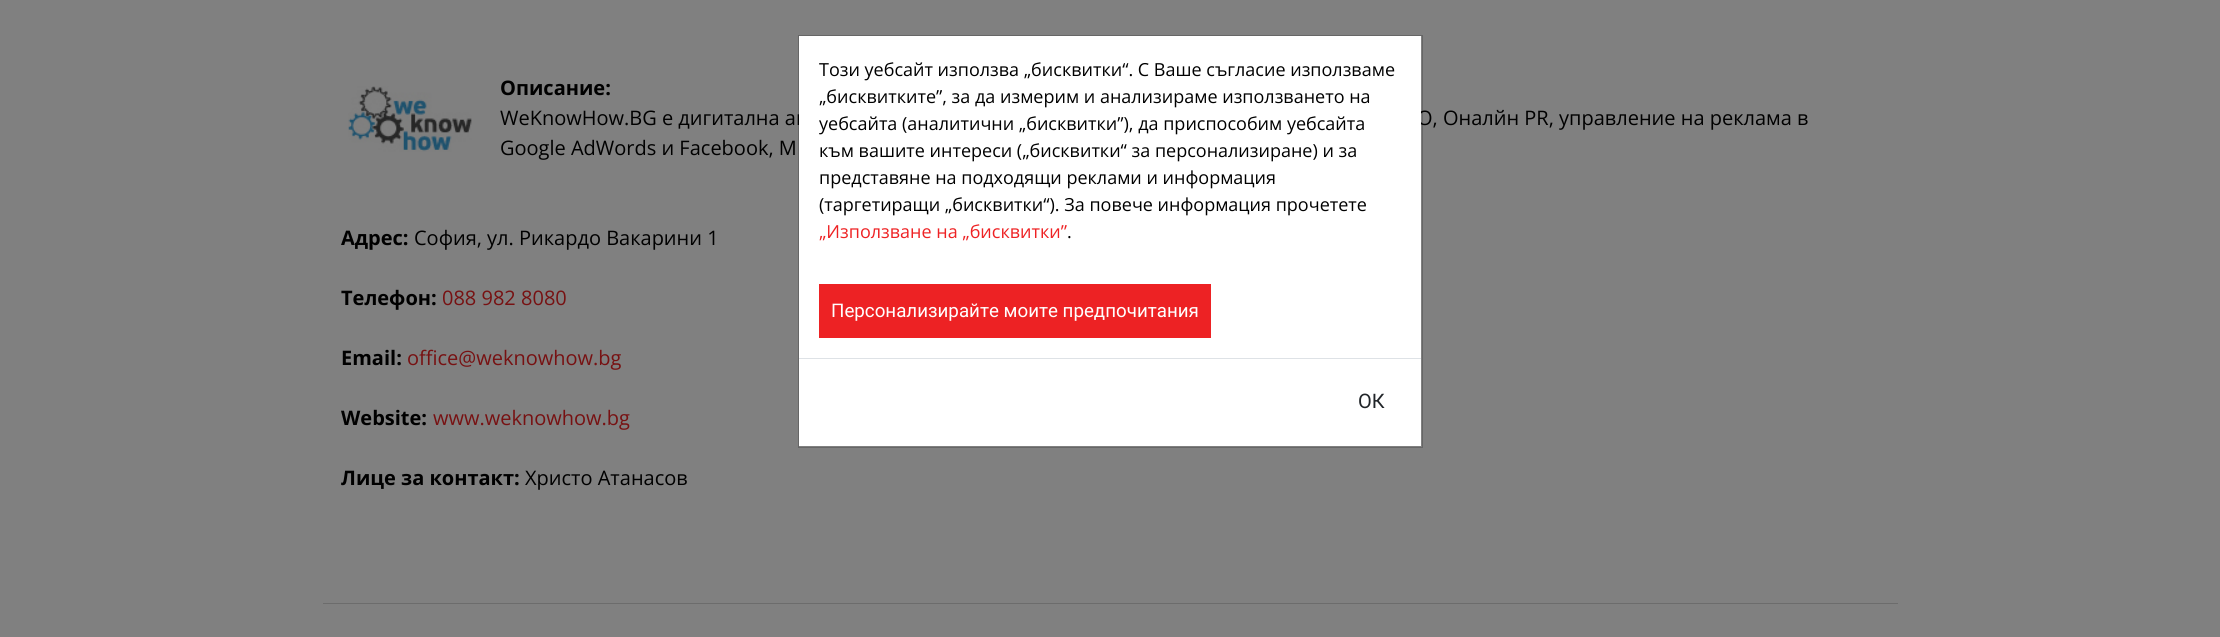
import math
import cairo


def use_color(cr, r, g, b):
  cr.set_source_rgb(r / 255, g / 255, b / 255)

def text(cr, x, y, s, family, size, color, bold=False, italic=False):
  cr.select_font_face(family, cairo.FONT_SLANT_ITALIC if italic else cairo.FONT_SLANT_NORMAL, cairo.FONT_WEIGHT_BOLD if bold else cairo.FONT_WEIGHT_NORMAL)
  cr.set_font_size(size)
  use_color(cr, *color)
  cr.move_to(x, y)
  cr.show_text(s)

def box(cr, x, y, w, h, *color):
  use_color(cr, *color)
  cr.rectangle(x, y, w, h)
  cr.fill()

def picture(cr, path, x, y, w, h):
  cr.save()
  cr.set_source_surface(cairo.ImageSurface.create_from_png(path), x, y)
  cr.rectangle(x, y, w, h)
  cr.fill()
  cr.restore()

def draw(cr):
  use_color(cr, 128, 128, 128)
  cr.paint()
  picture(cr, "img_01.png", 348, 86, 124, 66)
  box(cr, 323, 603, 1575, 1, 108, 108, 108)
  text(cr, 500, 95, "Описание:", "Open Sans", 20, (0, 0, 0), bold=True)
  text(cr, 1417, 125, "O, Оналйн PR, управление на реклама в", "Open Sans", 20, (0, 0, 0))
  text(cr, 500, 125, "WeKnowHow.BG е дигитална аг", "Open Sans", 20, (0, 0, 0))
  box(cr, 799, 36, 622, 410, 255, 255, 255)
  cr.rectangle(798.5, 35.5, 624, 412)
  cr.set_source_rgba(0, 0, 0, 0.2)
  cr.set_line_width(1)
  cr.stroke()
  box(cr, 819, 284, 392, 54, 237, 34, 36)
  text(cr, 831, 317, "Персонализирайте моите предпочитания", "Roboto", 18.75, (255, 255, 255))
  text(cr, 1067, 238, ".", "Open Sans", 18, (0, 0, 0))
  text(cr, 819, 238, "„Използване на „бисквитки”", "Open Sans", 18, (238, 34, 36))
  text(cr, 819, 211, "(таргетиращи „бисквитки“). За повече информация прочетете", "Open Sans", 18, (0, 0, 0))
  text(cr, 819, 184, "представяне на подходящи реклами и информация", "Open Sans", 18, (0, 0, 0))
  text(cr, 819, 157, "към вашите интереси („бисквитки“ за персонализиране) и за", "Open Sans", 18, (0, 0, 0))
  text(cr, 819, 130, "уебсайта (аналитични „бисквитки”), да приспособим уебсайта", "Open Sans", 18, (0, 0, 0))
  text(cr, 819, 103, "„бисквитките”, за да измерим и анализираме използването на", "Open Sans", 18, (0, 0, 0))
  text(cr, 819, 76, "Този уебсайт използва „бисквитки“. С Ваше съгласие използваме", "Open Sans", 18, (0, 0, 0))
  text(cr, 1358, 408, "ОК", "Roboto", 20, (33, 37, 41))
  box(cr, 799, 358, 622, 1, 222, 226, 230)
  text(cr, 500, 155, "Google AdWords и Facebook, М", "Open Sans", 20, (0, 0, 0))
  text(cr, 341, 245, "Адрес:", "Open Sans", 20, (0, 0, 0), bold=True)
  text(cr, 414, 245, "София, ул. Рикардо Вакарини 1", "Open Sans", 20, (0, 0, 0))
  text(cr, 341, 305, "Телефон:", "Open Sans", 20, (0, 0, 0), bold=True)
  text(cr, 442, 305, "088 982 8080", "Open Sans", 20, (119, 17, 18))
  text(cr, 341, 365, "Email:", "Open Sans", 20, (0, 0, 0), bold=True)
  text(cr, 407, 365, "office@weknowhow.bg", "Open Sans", 20, (119, 17, 18))
  text(cr, 341, 425, "Website:", "Open Sans", 20, (0, 0, 0), bold=True)
  text(cr, 433, 425, "www.weknowhow.bg", "Open Sans", 20, (119, 17, 18))
  text(cr, 341, 485, "Лице за контакт:", "Open Sans", 20, (0, 0, 0), bold=True)
  text(cr, 525, 485, "Христо Атанасов", "Open Sans", 20, (0, 0, 0))


surface = cairo.ImageSurface(cairo.FORMAT_RGB24, 2220, 637)
cr = cairo.Context(surface)
options = cairo.FontOptions()
options.set_hint_metrics(cairo.HINT_METRICS_OFF)
options.set_hint_style(cairo.HINT_STYLE_NONE)
cr.set_font_options(options)
cr.set_miter_limit(4)
draw(cr)
surface.write_to_png("out.png")
